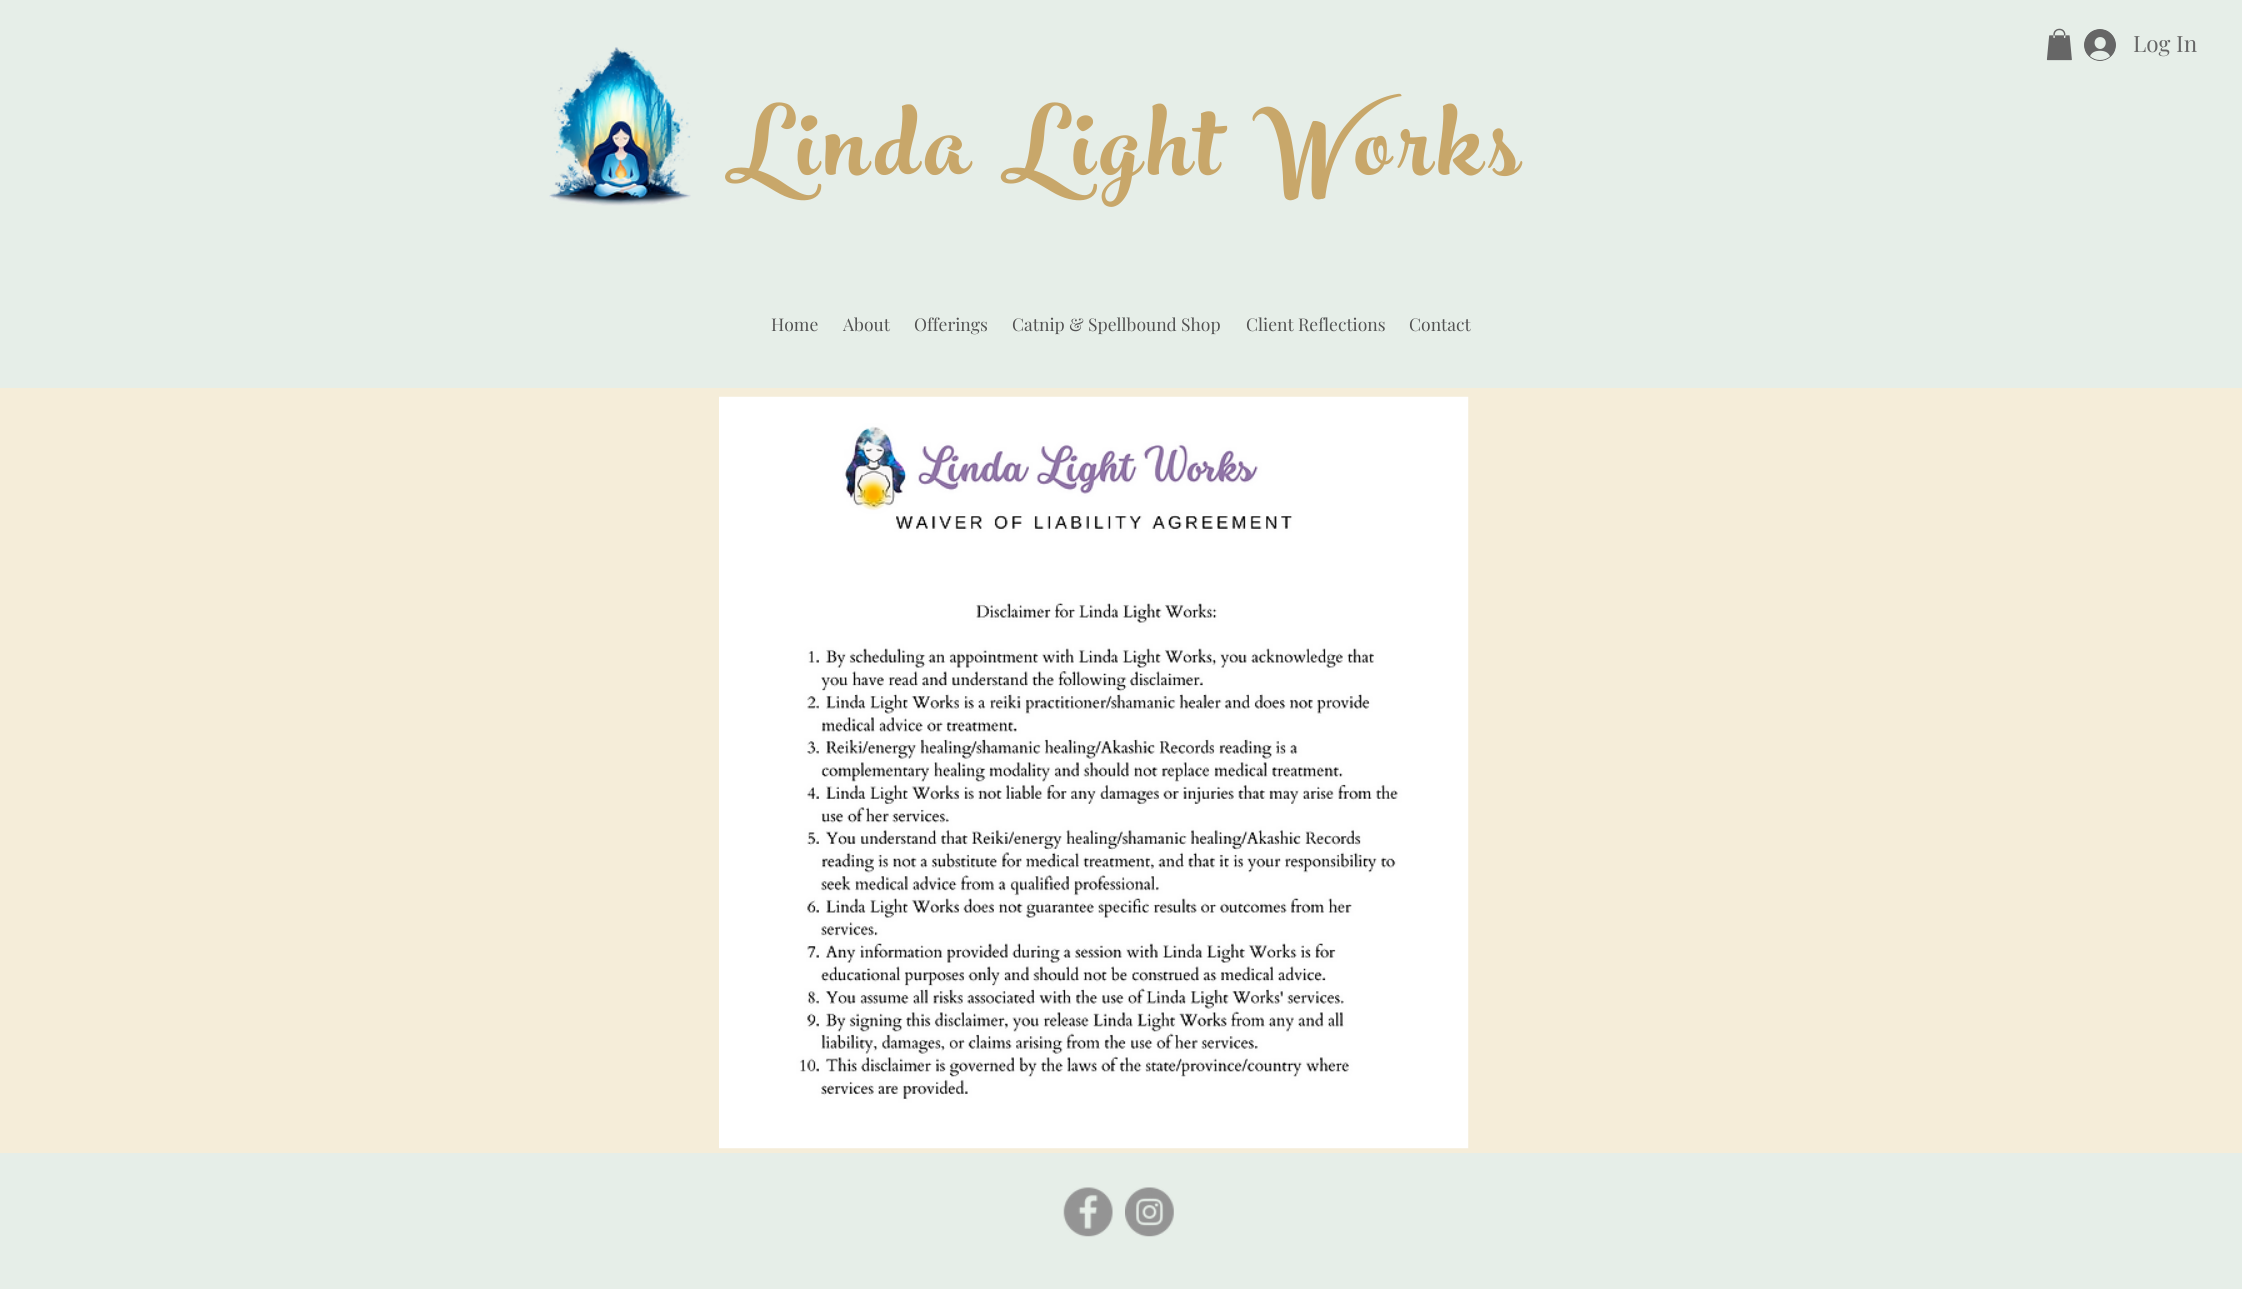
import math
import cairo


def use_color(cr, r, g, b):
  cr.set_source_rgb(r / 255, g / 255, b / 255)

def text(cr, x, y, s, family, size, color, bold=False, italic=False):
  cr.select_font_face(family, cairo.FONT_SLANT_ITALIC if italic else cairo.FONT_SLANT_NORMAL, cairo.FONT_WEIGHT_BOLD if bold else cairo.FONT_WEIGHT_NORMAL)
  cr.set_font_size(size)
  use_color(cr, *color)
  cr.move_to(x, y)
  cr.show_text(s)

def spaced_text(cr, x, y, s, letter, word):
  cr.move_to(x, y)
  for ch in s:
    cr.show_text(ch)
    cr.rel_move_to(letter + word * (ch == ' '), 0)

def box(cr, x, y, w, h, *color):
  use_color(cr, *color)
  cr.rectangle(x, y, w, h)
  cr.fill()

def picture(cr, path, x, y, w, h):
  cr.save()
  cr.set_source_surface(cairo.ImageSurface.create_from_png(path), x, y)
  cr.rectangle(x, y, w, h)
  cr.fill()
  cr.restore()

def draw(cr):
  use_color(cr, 245, 237, 217)
  cr.paint()
  box(cr, 0, 0, 2242, 388, 230, 238, 232)
  picture(cr, "img_01.png", 549, 47, 142, 159)
  picture(cr, "img_02.png", 2046, 28, 26, 33)
  picture(cr, "img_03.png", 2084, 29, 32, 32)
  picture(cr, "img_04.png", 719, 396, 750, 753)
  box(cr, 0, 1153, 2242, 136, 230, 238, 232)
  picture(cr, "img_05.png", 1063, 1187, 50, 50)
  picture(cr, "img_06.png", 1125, 1187, 49, 50)
  cr.select_font_face("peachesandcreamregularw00")
  cr.set_font_size(150)
  use_color(cr, 200, 167, 106)
  spaced_text(cr, 725, 175, "Linda Light Works", 7.5, 0)
  text(cr, 2133, 52, "Log In", "Playfair Display", 22.5, (102, 102, 102))
  text(cr, 771, 331, "Home", "Playfair Display", 17.5, (82, 82, 82))
  text(cr, 843, 331, "About", "Playfair Display", 17.5, (82, 82, 82))
  text(cr, 914, 331, "Offerings", "Playfair Display", 17.5, (82, 82, 82))
  text(cr, 1012, 331, "Catnip & Spellbound Shop", "Playfair Display", 17.5, (82, 82, 82))
  text(cr, 1246, 331, "Client Reflections", "Playfair Display", 17.5, (82, 82, 82))
  text(cr, 1409, 331, "Contact", "Playfair Display", 17.5, (82, 82, 82))


surface = cairo.ImageSurface(cairo.FORMAT_RGB24, 2242, 1289)
cr = cairo.Context(surface)
options = cairo.FontOptions()
options.set_hint_metrics(cairo.HINT_METRICS_OFF)
options.set_hint_style(cairo.HINT_STYLE_NONE)
cr.set_font_options(options)
cr.set_miter_limit(4)
draw(cr)
surface.write_to_png("out.png")
